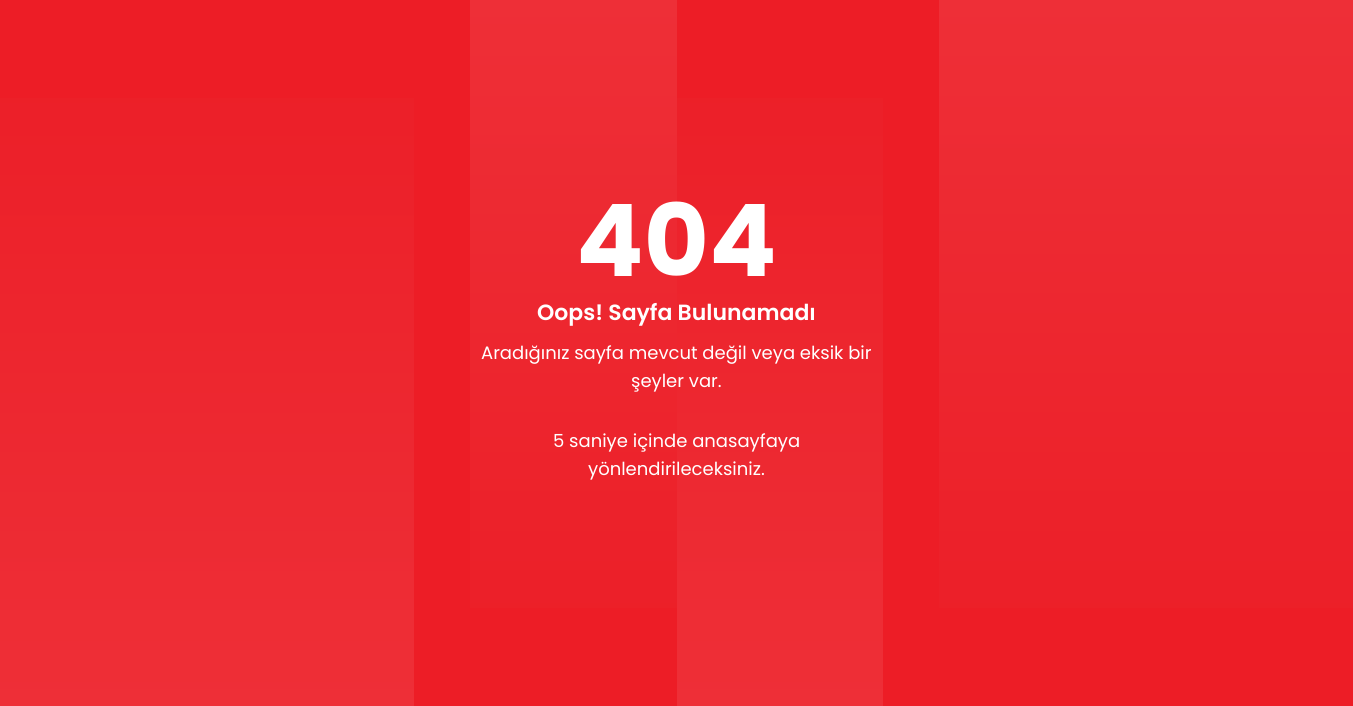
import math
import cairo


def use_color(cr, r, g, b):
  cr.set_source_rgb(r / 255, g / 255, b / 255)

def text(cr, x, y, s, family, size, color, bold=False, italic=False):
  cr.select_font_face(family, cairo.FONT_SLANT_ITALIC if italic else cairo.FONT_SLANT_NORMAL, cairo.FONT_WEIGHT_BOLD if bold else cairo.FONT_WEIGHT_NORMAL)
  cr.set_font_size(size)
  use_color(cr, *color)
  cr.move_to(x, y)
  cr.show_text(s)

def draw(cr):
  use_color(cr, 237, 29, 38)
  cr.paint()
  gradient = cairo.LinearGradient(207, 706, 207, 0)
  gradient.add_color_stop_rgba(0, 0.933, 0.184, 0.216, 1)
  gradient.add_color_stop_rgba(1, 0.925, 0.114, 0.149, 1)
  cr.set_source(gradient)
  cr.rectangle(0, 98, 414, 608)
  cr.fill()
  gradient = cairo.LinearGradient(574, 0, 574, 706)
  gradient.add_color_stop_rgba(0, 0.933, 0.184, 0.216, 1)
  gradient.add_color_stop_rgba(1, 0.925, 0.114, 0.149, 1)
  cr.set_source(gradient)
  cr.rectangle(470, 0, 207, 608)
  cr.fill()
  gradient = cairo.LinearGradient(780, 706, 780, 0)
  gradient.add_color_stop_rgba(0, 0.933, 0.184, 0.216, 1)
  gradient.add_color_stop_rgba(1, 0.925, 0.114, 0.149, 1)
  cr.set_source(gradient)
  cr.rectangle(677, 98, 206, 608)
  cr.fill()
  gradient = cairo.LinearGradient(1146, 0, 1146, 706)
  gradient.add_color_stop_rgba(0, 0.933, 0.184, 0.216, 1)
  gradient.add_color_stop_rgba(1, 0.925, 0.114, 0.149, 1)
  cr.set_source(gradient)
  cr.rectangle(939, 0, 414, 608)
  cr.fill()
  text(cr, 576, 276, "404", "Poppins", 100, (255, 255, 255), bold=True)
  text(cr, 537, 320, "Oops! Sayfa Bulunamadı", "Poppins SemiBold", 22, (255, 255, 255))
  text(cr, 481, 359, "Aradığınız sayfa mevcut değil veya eksik bir", "Poppins", 18, (255, 255, 255))
  text(cr, 631, 387, "şeyler var.", "Poppins", 18, (255, 255, 255))
  text(cr, 553, 447, "5 saniye içinde anasayfaya", "Poppins", 18, (255, 255, 255))
  text(cr, 588, 475, "yönlendirileceksiniz.", "Poppins", 18, (255, 255, 255))


surface = cairo.ImageSurface(cairo.FORMAT_RGB24, 1353, 706)
cr = cairo.Context(surface)
options = cairo.FontOptions()
options.set_hint_metrics(cairo.HINT_METRICS_OFF)
options.set_hint_style(cairo.HINT_STYLE_NONE)
cr.set_font_options(options)
cr.set_miter_limit(4)
draw(cr)
surface.write_to_png("out.png")
